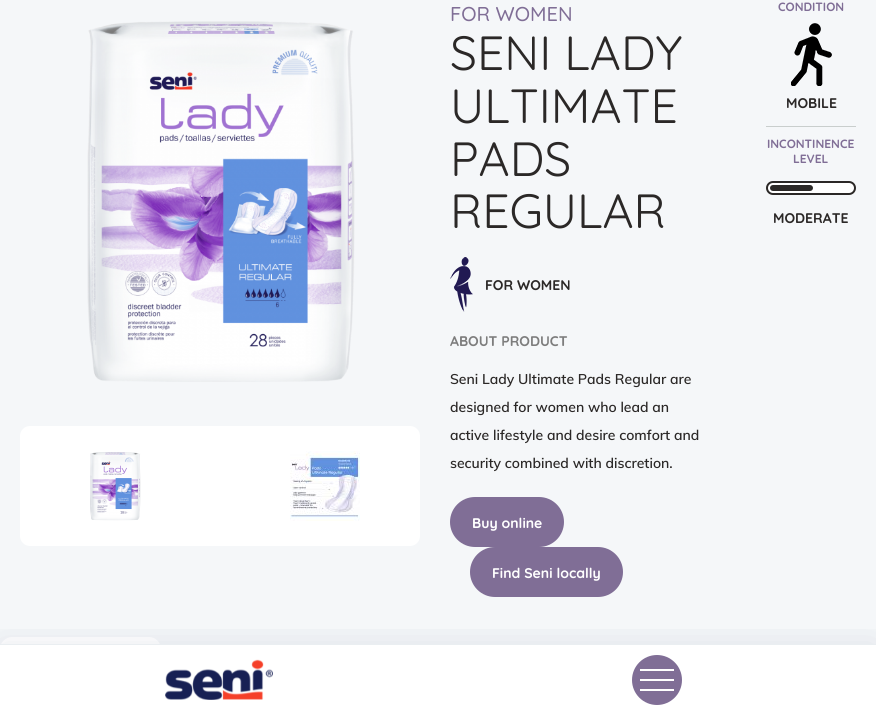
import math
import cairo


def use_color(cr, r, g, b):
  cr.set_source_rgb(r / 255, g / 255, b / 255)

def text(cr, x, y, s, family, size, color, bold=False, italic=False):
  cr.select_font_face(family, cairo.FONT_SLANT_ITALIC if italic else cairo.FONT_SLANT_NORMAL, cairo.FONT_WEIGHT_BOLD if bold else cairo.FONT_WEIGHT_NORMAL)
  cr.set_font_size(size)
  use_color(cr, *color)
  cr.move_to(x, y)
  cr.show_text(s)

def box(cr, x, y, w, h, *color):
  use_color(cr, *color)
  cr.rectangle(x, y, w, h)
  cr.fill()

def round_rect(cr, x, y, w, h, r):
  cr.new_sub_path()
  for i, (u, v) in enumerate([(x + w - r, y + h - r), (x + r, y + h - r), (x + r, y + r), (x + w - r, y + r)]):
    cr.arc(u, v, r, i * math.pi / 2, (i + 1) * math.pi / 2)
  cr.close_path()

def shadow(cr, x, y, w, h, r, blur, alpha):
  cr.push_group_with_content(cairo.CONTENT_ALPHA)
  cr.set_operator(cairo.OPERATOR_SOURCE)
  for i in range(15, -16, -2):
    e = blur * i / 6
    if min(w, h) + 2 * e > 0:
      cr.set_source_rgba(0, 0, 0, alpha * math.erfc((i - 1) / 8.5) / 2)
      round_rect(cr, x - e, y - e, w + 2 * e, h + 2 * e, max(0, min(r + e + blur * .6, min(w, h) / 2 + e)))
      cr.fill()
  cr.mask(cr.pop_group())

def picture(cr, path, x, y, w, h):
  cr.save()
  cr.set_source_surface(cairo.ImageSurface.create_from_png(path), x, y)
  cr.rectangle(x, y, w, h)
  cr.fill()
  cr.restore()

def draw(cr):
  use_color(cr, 245, 247, 249)
  cr.paint()
  picture(cr, "img_01.png", 87, 21, 268, 361)
  use_color(cr, 255, 255, 255)
  round_rect(cr, 20, 426, 400, 120, 10)
  cr.fill()
  picture(cr, "img_02.png", 90, 452, 51, 69)
  picture(cr, "img_03.png", 290, 451, 70, 70)
  picture(cr, "img_04.png", 450, 257, 23, 55)
  use_color(cr, 128, 110, 150)
  round_rect(cr, 450, 497, 114, 50, 25)
  cr.fill()
  round_rect(cr, 470, 547, 153, 50, 25)
  cr.fill()
  box(cr, 766, 126, 90, 1, 201, 206, 205)
  picture(cr, "img_05.png", 791, 23, 41, 63)
  use_color(cr, 255, 255, 255)
  round_rect(cr, 767, 182, 88, 12, 6)
  cr.fill_preserve()
  use_color(cr, 43, 40, 39)
  cr.stroke()
  round_rect(cr, 770, 185, 43, 6, 3)
  cr.fill()
  use_color(cr, 255, 255, 255)
  cr.new_path()
  cr.move_to(12, 637)
  cr.line_to(149, 637)
  cr.curve_to(155.5, 637, 161, 642.5, 161, 649)
  cr.line_to(161, 697)
  cr.line_to(0, 697)
  cr.line_to(0, 649)
  cr.curve_to(0, 642.5, 5.5, 637, 12, 637)
  cr.close_path()
  cr.fill()
  box(cr, 0, 645, 876, 69, 255, 255, 255)
  cr.save()
  cr.rectangle(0, 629, 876, 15)
  cr.clip()
  use_color(cr, 17, 38, 77)
  shadow(cr, 0, 644, 876, 70, 0, 17.5, 0.1)
  cr.restore()
  box(cr, 0, 644, 876, 1, 234, 238, 241)
  picture(cr, "img_06.png", 165, 659, 108, 41)
  use_color(cr, 128, 110, 150)
  cr.arc(657, 680, 25, 0, 2 * math.pi)
  cr.fill()
  box(cr, 640, 679, 34, 2, 255, 255, 255)
  box(cr, 640, 669, 34, 2, 255, 255, 255)
  box(cr, 640, 689, 34, 2, 255, 255, 255)
  text(cr, 450, 21, "FOR WOMEN", "Quicksand Medium", 20, (128, 110, 150))
  text(cr, 450, 70, "SENI LADY", "Quicksand", 48, (43, 40, 39))
  text(cr, 450, 123, "ULTIMATE", "Quicksand", 48, (43, 40, 39))
  text(cr, 450, 176, "PADS", "Quicksand", 48, (43, 40, 39))
  text(cr, 450, 228, "REGULAR", "Quicksand", 48, (43, 40, 39))
  text(cr, 485, 290, "FOR WOMEN", "Quicksand", 14, (43, 40, 39), bold=True)
  text(cr, 450, 346, "ABOUT PRODUCT", "Quicksand", 14, (125, 125, 125), bold=True)
  text(cr, 450, 384, "Seni Lady Ultimate Pads Regular are", "Muli SemiBold", 14, (43, 40, 39))
  text(cr, 450, 412, "designed for women who lead an", "Muli SemiBold", 14, (43, 40, 39))
  text(cr, 450, 440, "active lifestyle and desire comfort and", "Muli SemiBold", 14, (43, 40, 39))
  text(cr, 450, 468, "security combined with discretion.", "Muli SemiBold", 14, (43, 40, 39))
  text(cr, 472, 528, "Buy online", "Quicksand", 14, (255, 255, 255), bold=True)
  text(cr, 492, 578, "Find Seni locally", "Quicksand", 14, (255, 255, 255), bold=True)
  text(cr, 778, 11, "CONDITION", "Quicksand", 12, (128, 110, 150), bold=True)
  text(cr, 786, 108, "MOBILE", "Quicksand", 14, (43, 40, 39), bold=True)
  text(cr, 767, 148, "INCONTINENCE", "Quicksand", 12, (128, 110, 150), bold=True)
  text(cr, 793, 163, "LEVEL", "Quicksand", 12, (128, 110, 150), bold=True)
  text(cr, 773, 223, "MODERATE", "Quicksand", 14, (43, 40, 39), bold=True)


surface = cairo.ImageSurface(cairo.FORMAT_RGB24, 876, 714)
cr = cairo.Context(surface)
options = cairo.FontOptions()
options.set_hint_metrics(cairo.HINT_METRICS_OFF)
options.set_hint_style(cairo.HINT_STYLE_NONE)
cr.set_font_options(options)
cr.set_miter_limit(4)
draw(cr)
surface.write_to_png("out.png")
